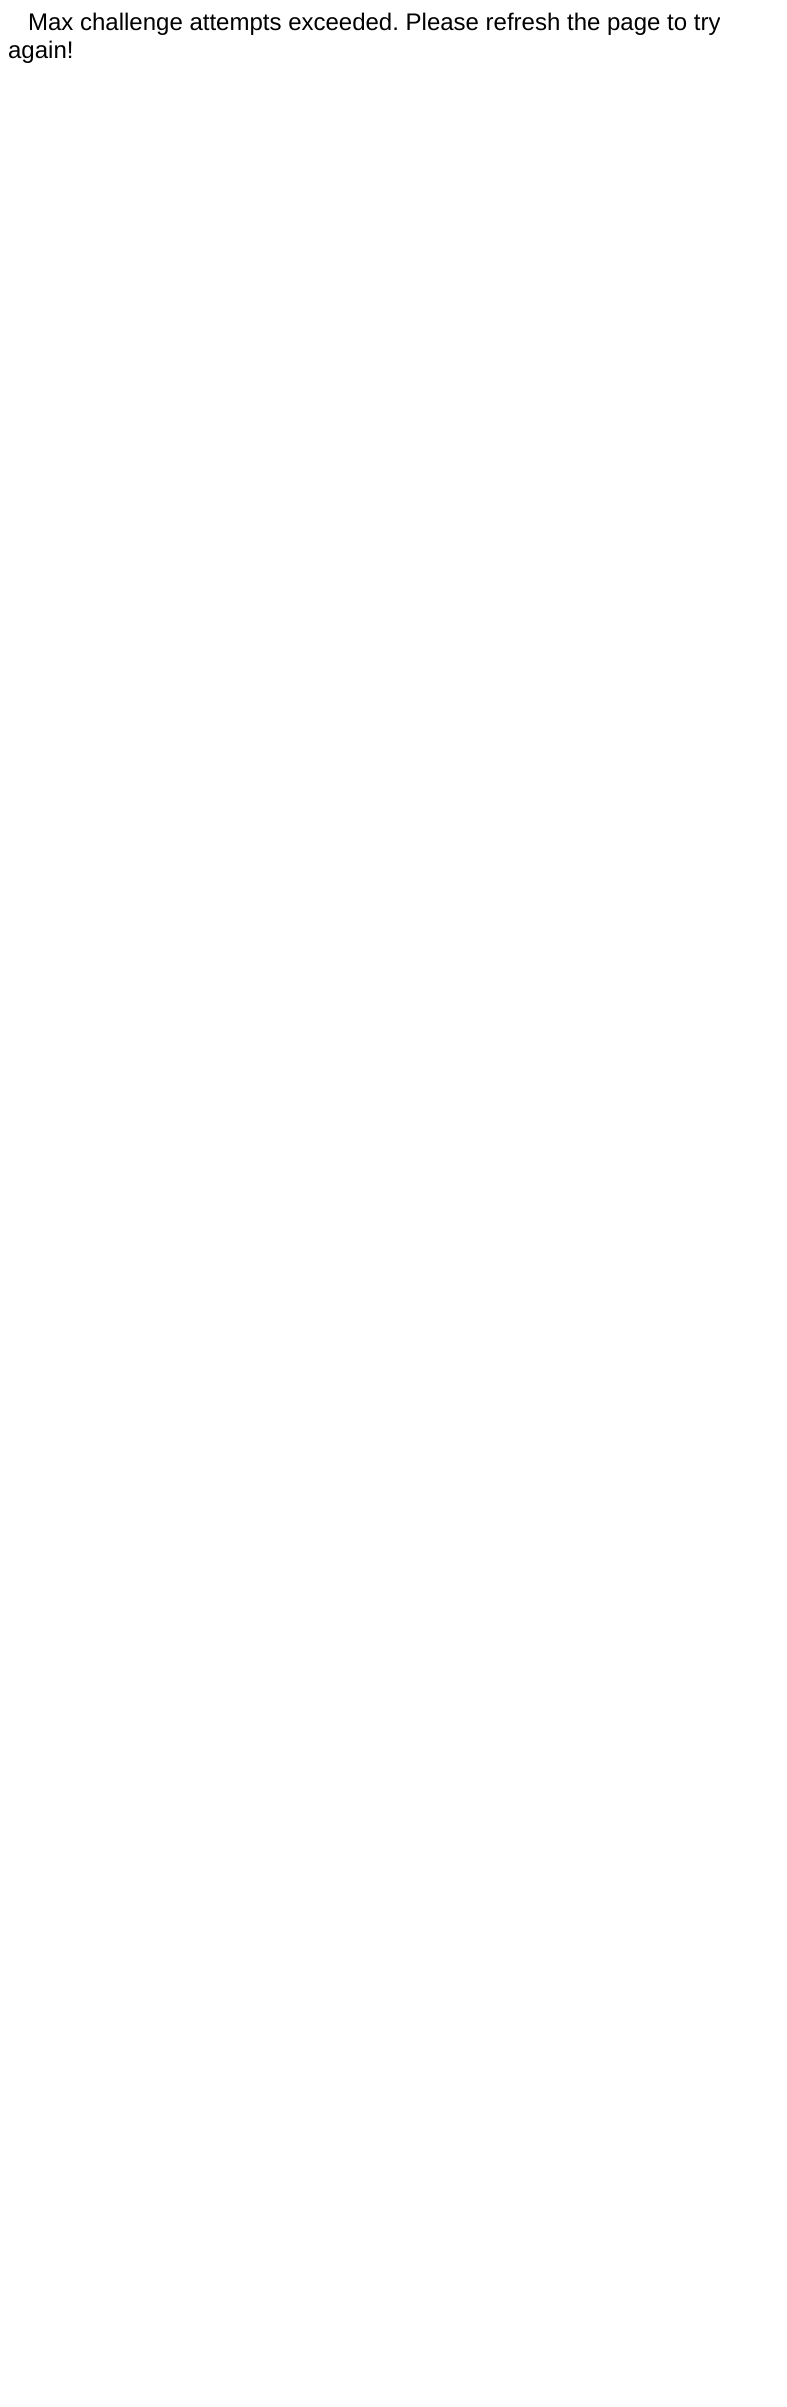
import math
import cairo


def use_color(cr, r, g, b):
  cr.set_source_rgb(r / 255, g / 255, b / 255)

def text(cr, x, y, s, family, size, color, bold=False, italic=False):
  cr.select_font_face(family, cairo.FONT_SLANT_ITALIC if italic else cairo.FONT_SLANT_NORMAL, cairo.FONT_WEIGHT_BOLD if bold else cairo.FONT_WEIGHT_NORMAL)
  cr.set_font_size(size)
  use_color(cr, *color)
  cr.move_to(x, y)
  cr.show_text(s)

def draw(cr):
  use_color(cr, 255, 255, 255)
  cr.paint()
  text(cr, 28, 30, "Max challenge attempts exceeded. Please refresh the page to try", "Liberation Sans", 24, (0, 0, 0))
  text(cr, 8, 58, "again!", "Liberation Sans", 24, (0, 0, 0))


surface = cairo.ImageSurface(cairo.FORMAT_RGB24, 787, 2407)
cr = cairo.Context(surface)
options = cairo.FontOptions()
options.set_hint_metrics(cairo.HINT_METRICS_OFF)
options.set_hint_style(cairo.HINT_STYLE_NONE)
cr.set_font_options(options)
cr.set_miter_limit(4)
draw(cr)
surface.write_to_png("out.png")
